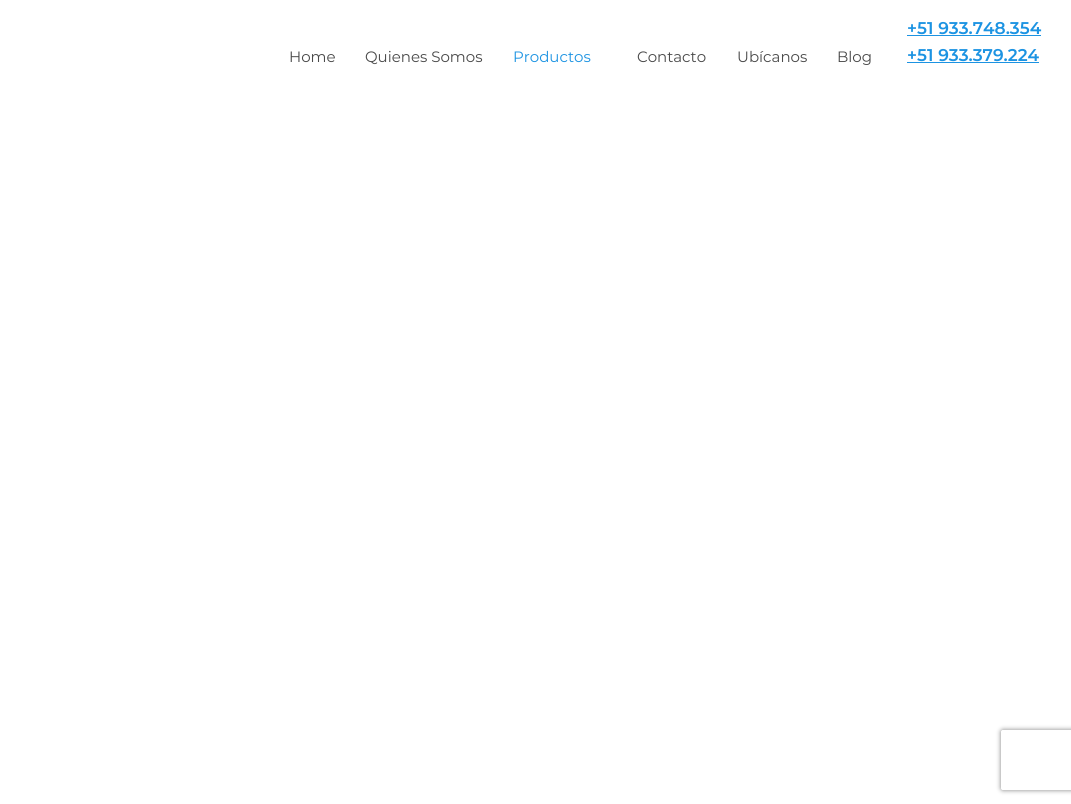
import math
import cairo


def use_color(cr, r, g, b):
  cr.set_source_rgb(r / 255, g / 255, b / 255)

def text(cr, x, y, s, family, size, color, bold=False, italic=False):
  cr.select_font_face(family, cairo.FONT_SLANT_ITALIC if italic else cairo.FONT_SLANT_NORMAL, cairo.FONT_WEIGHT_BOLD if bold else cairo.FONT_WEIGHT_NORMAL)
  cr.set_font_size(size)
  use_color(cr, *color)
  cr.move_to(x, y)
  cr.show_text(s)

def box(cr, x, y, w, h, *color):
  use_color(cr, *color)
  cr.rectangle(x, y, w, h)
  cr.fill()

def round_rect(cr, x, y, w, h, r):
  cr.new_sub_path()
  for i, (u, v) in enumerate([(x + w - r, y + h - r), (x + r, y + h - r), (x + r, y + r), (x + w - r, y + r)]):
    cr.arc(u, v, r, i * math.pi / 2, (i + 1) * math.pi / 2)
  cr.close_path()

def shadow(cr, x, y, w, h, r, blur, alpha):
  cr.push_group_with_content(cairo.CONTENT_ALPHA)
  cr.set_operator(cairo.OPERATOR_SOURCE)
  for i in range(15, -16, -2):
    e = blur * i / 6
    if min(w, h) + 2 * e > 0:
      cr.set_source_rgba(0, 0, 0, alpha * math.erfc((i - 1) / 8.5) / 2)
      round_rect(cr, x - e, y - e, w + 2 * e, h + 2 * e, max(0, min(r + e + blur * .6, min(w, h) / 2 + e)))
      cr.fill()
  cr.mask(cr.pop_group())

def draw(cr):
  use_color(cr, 255, 255, 255)
  cr.paint()
  box(cr, 907, 35, 134, 1, 28, 147, 226)
  box(cr, 907, 62, 132, 1, 28, 147, 226)
  cr.save()
  cr.set_fill_rule(cairo.FILL_RULE_EVEN_ODD)
  cr.new_path()
  cr.move_to(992, 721)
  cr.line_to(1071, 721)
  cr.line_to(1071, 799)
  cr.line_to(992, 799)
  cr.close_path()
  cr.move_to(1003, 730)
  cr.line_to(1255, 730)
  cr.curve_to(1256, 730, 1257, 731, 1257, 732)
  cr.line_to(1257, 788)
  cr.curve_to(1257, 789, 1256, 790, 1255, 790)
  cr.line_to(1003, 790)
  cr.curve_to(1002, 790, 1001, 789, 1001, 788)
  cr.line_to(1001, 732)
  cr.curve_to(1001, 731, 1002, 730, 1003, 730)
  cr.close_path()
  cr.clip()
  use_color(cr, 128, 128, 128)
  shadow(cr, 1001, 730, 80, 60, 2, 2.5, 1)
  cr.restore()
  text(cr, 289, 62, "Home", "Montserrat", 15, (74, 74, 74))
  text(cr, 365, 62, "Quienes Somos", "Montserrat", 15, (74, 74, 74))
  text(cr, 513, 62, "Productos", "Montserrat", 15, (28, 147, 226))
  text(cr, 637, 62, "Contacto", "Montserrat", 15, (74, 74, 74))
  text(cr, 737, 62, "Ubícanos", "Montserrat", 15, (74, 74, 74))
  text(cr, 837, 62, "Blog", "Montserrat", 15, (74, 74, 74))
  text(cr, 907, 34, "+51 933.748.354", "Montserrat SemiBold", 17, (28, 147, 226))
  text(cr, 907, 61, "+51 933.379.224", "Montserrat SemiBold", 17, (28, 147, 226))


surface = cairo.ImageSurface(cairo.FORMAT_RGB24, 1071, 804)
cr = cairo.Context(surface)
options = cairo.FontOptions()
options.set_hint_metrics(cairo.HINT_METRICS_OFF)
options.set_hint_style(cairo.HINT_STYLE_NONE)
cr.set_font_options(options)
cr.set_miter_limit(4)
draw(cr)
surface.write_to_png("out.png")
